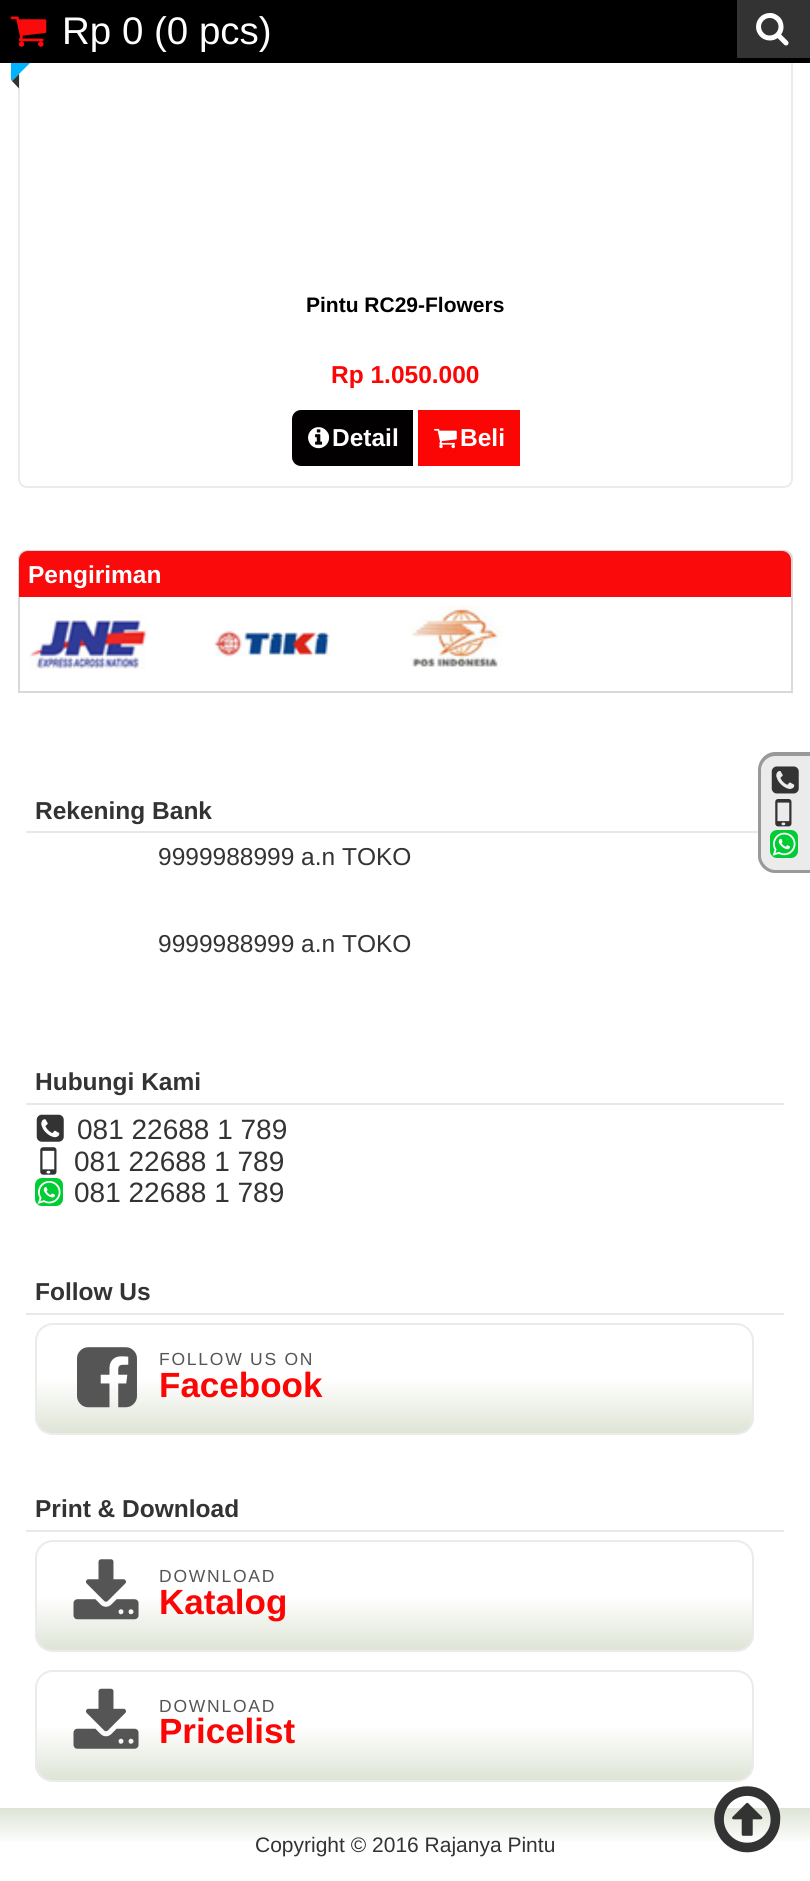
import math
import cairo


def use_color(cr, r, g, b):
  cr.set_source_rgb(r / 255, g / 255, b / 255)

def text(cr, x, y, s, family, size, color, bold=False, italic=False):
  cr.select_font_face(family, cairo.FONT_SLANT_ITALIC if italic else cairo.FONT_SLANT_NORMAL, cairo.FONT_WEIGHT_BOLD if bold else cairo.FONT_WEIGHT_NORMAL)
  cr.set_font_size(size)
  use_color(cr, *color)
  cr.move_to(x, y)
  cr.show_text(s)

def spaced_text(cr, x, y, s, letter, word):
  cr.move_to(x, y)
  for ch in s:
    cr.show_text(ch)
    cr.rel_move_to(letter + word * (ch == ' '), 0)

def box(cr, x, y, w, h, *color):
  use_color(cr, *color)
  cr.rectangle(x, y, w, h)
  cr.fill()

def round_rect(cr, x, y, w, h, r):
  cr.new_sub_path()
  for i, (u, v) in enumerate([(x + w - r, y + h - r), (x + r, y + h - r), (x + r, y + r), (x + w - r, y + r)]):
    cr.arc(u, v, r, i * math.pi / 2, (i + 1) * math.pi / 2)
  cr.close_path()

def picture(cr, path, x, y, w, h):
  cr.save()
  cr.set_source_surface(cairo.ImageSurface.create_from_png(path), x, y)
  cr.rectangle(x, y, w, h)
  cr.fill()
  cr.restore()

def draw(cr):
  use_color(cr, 255, 255, 255)
  cr.paint()
  round_rect(cr, 19, -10, 773, 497, 8)
  use_color(cr, 235, 235, 235)
  cr.stroke()
  cr.save()
  cr.rectangle(11, 0, 131, 88)
  cr.clip()
  use_color(cr, 0, 180, 255)
  cr.new_path()
  cr.move_to(-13, 56)
  cr.line_to(111, -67)
  cr.line_to(135, -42)
  cr.line_to(12, 81)
  cr.close_path()
  cr.fill()
  cr.restore()
  box(cr, 0, 0, 810, 63, 0, 0, 0)
  picture(cr, "img_01.png", 10, 16, 37, 31)
  box(cr, 737, 0, 73, 58, 51, 51, 51)
  picture(cr, "img_02.png", 756, 13, 33, 33)
  cr.new_path()
  cr.move_to(12, 81)
  cr.line_to(19, 74)
  cr.line_to(19, 81)
  cr.close_path()
  cr.move_to(19, 88.5)
  cr.line_to(12, 81)
  cr.line_to(19, 81)
  cr.close_path()
  cr.fill()
  use_color(cr, 2, 0, 0)
  cr.new_path()
  cr.move_to(301, 410)
  cr.line_to(413, 410)
  cr.line_to(413, 466)
  cr.line_to(301, 466)
  cr.curve_to(296, 466, 292, 462, 292, 457)
  cr.line_to(292, 419)
  cr.curve_to(292, 414, 296, 410, 301, 410)
  cr.close_path()
  cr.fill()
  picture(cr, "img_03.png", 308, 427, 22, 22)
  box(cr, 418, 410, 102, 56, 252, 5, 5)
  picture(cr, "img_04.png", 434, 428, 23, 21)
  cr.new_path()
  cr.move_to(27, 551)
  cr.line_to(784, 551)
  cr.curve_to(788.5, 551, 792, 554.5, 792, 559)
  cr.line_to(792, 692)
  cr.line_to(19, 692)
  cr.line_to(19, 559)
  cr.curve_to(19, 554.5, 22.5, 551, 27, 551)
  cr.close_path()
  use_color(cr, 217, 217, 217)
  cr.stroke()
  use_color(cr, 250, 10, 10)
  cr.new_path()
  cr.move_to(28, 551)
  cr.line_to(782, 551)
  cr.curve_to(787, 551, 791, 555, 791, 560)
  cr.line_to(791, 597)
  cr.line_to(19, 597)
  cr.line_to(19, 560)
  cr.curve_to(19, 555, 23, 551, 28, 551)
  cr.close_path()
  cr.fill()
  picture(cr, "img_05.png", 29, 614, 118, 56)
  picture(cr, "img_06.png", 214, 628, 116, 29)
  picture(cr, "img_07.png", 410, 605, 93, 62)
  box(cr, 26, 831, 732, 2, 232, 232, 232)
  box(cr, 26, 1103, 758, 2, 232, 232, 232)
  picture(cr, "img_08.png", 36, 1114, 28, 28)
  picture(cr, "img_09.png", 40, 1147, 17, 28)
  use_color(cr, 0, 204, 51)
  round_rect(cr, 35, 1178, 28, 28, 7)
  cr.fill()
  picture(cr, "img_10.png", 37, 1180, 24, 24)
  box(cr, 26, 1313, 758, 2, 232, 232, 232)
  cr.save()
  round_rect(cr, 35, 1323, 719, 112, 18)
  cr.clip()
  gradient = cairo.LinearGradient(395, 1325, 395, 1433)
  gradient.add_color_stop_rgba(0, 1, 1, 1, 1)
  gradient.add_color_stop_rgba(0.5, 1, 1, 1, 1)
  gradient.add_color_stop_rgba(1, 0.871, 0.894, 0.839, 1)
  cr.set_source(gradient)
  cr.rectangle(35, 1325, 719, 108)
  cr.fill()
  cr.restore()
  round_rect(cr, 36, 1324, 717, 110, 17)
  use_color(cr, 235, 235, 235)
  cr.stroke()
  picture(cr, "img_11.png", 77, 1347, 60, 61)
  box(cr, 26, 1530, 758, 2, 232, 232, 232)
  cr.save()
  round_rect(cr, 35, 1540, 719, 112, 18)
  cr.clip()
  gradient = cairo.LinearGradient(395, 1542, 395, 1650)
  gradient.add_color_stop_rgba(0, 1, 1, 1, 1)
  gradient.add_color_stop_rgba(0.5, 1, 1, 1, 1)
  gradient.add_color_stop_rgba(1, 0.871, 0.894, 0.839, 1)
  cr.set_source(gradient)
  cr.rectangle(35, 1542, 719, 108)
  cr.fill()
  cr.restore()
  round_rect(cr, 36, 1541, 717, 110, 17)
  use_color(cr, 235, 235, 235)
  cr.stroke()
  picture(cr, "img_12.png", 73, 1559, 66, 61)
  cr.save()
  round_rect(cr, 35, 1670, 719, 112, 18)
  cr.clip()
  gradient = cairo.LinearGradient(395, 1671, 395, 1780)
  gradient.add_color_stop_rgba(0, 1, 1, 1, 1)
  gradient.add_color_stop_rgba(0.5, 1, 1, 1, 1)
  gradient.add_color_stop_rgba(1, 0.871, 0.894, 0.839, 1)
  cr.set_source(gradient)
  cr.rectangle(35, 1671, 719, 109)
  cr.fill()
  cr.restore()
  round_rect(cr, 36, 1671, 717, 110, 17)
  cr.stroke()
  picture(cr, "img_13.png", 73, 1688, 66, 61)
  gradient = cairo.LinearGradient(405, 1881, 405, 1808)
  gradient.add_color_stop_rgba(0, 1, 1, 1, 1)
  gradient.add_color_stop_rgba(0.5, 1, 1, 1, 1)
  gradient.add_color_stop_rgba(1, 0.871, 0.894, 0.839, 1)
  cr.set_source(gradient)
  cr.rectangle(0, 1808, 810, 34)
  cr.fill()
  picture(cr, "img_14.png", 714, 1786, 67, 67)
  use_color(cr, 235, 235, 235)
  cr.new_path()
  cr.move_to(776, 753)
  cr.line_to(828, 753)
  cr.line_to(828, 873)
  cr.line_to(776, 873)
  cr.curve_to(766, 873, 758, 865, 758, 855)
  cr.line_to(758, 771)
  cr.curve_to(758, 761, 766, 753, 776, 753)
  cr.close_path()
  cr.fill()
  use_color(cr, 153, 153, 153)
  cr.set_fill_rule(cairo.FILL_RULE_EVEN_ODD)
  cr.new_path()
  cr.move_to(775, 752)
  cr.line_to(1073, 752)
  cr.line_to(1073, 873)
  cr.line_to(775, 873)
  cr.curve_to(766, 873, 758, 865, 758, 856)
  cr.line_to(758, 770)
  cr.curve_to(758, 760, 766, 752, 775, 752)
  cr.close_path()
  cr.move_to(775, 756)
  cr.line_to(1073, 756)
  cr.line_to(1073, 870)
  cr.line_to(775, 870)
  cr.curve_to(768, 870, 761, 863, 761, 856)
  cr.line_to(761, 770)
  cr.curve_to(761, 762, 768, 756, 775, 756)
  cr.close_path()
  cr.fill()
  picture(cr, "img_15.png", 771, 766, 28, 28)
  picture(cr, "img_16.png", 775, 799, 17, 28)
  use_color(cr, 0, 204, 51)
  round_rect(cr, 770, 830, 28, 28, 7)
  cr.fill()
  picture(cr, "img_17.png", 772, 832, 24, 24)
  text(cr, 62, 44, "Rp 0 (0 pcs)", "Liberation Sans", 38.5, (255, 255, 255))
  text(cr, 306, 312, "Pintu RC29-Flowers", "Liberation Sans", 21, (0, 0, 0), bold=True)
  text(cr, 331, 383, "Rp 1.050.000", "Liberation Sans", 24.5, (252, 5, 5), bold=True)
  text(cr, 332, 446, "Detail", "Liberation Sans", 24.5, (255, 255, 255), bold=True)
  text(cr, 460, 446, "Beli", "Liberation Sans", 24.5, (255, 255, 255), bold=True)
  text(cr, 28, 583, "Pengiriman", "Liberation Sans", 24.5, (255, 255, 255), bold=True)
  text(cr, 35, 819, "Rekening Bank", "Liberation Sans", 24.5, (51, 51, 51), bold=True)
  text(cr, 158, 865, "9999988999 a.n TOKO", "Liberation Sans", 24.5, (51, 51, 51))
  text(cr, 158, 952, "9999988999 a.n TOKO", "Liberation Sans", 24.5, (51, 51, 51))
  text(cr, 35, 1090, "Hubungi Kami", "Liberation Sans", 24.5, (51, 51, 51), bold=True)
  text(cr, 77, 1139, "081 22688 1 789", "Liberation Sans", 28, (51, 51, 51))
  text(cr, 74, 1171, "081 22688 1 789", "Liberation Sans", 28, (51, 51, 51))
  text(cr, 74, 1202, "081 22688 1 789", "Liberation Sans", 28, (51, 51, 51))
  text(cr, 35, 1300, "Follow Us", "Liberation Sans", 24.5, (51, 51, 51), bold=True)
  cr.select_font_face("Liberation Sans")
  cr.set_font_size(17.5)
  use_color(cr, 85, 85, 85)
  spaced_text(cr, 159, 1365, "FOLLOW US ON", 1.75, 0)
  text(cr, 159, 1397, "Facebook", "Liberation Sans", 35, (252, 5, 5), bold=True)
  text(cr, 35, 1517, "Print & Download", "Liberation Sans", 24.5, (51, 51, 51), bold=True)
  cr.select_font_face("Liberation Sans")
  cr.set_font_size(17.5)
  use_color(cr, 85, 85, 85)
  spaced_text(cr, 159, 1582, "DOWNLOAD", 1.75, 0)
  text(cr, 159, 1614, "Katalog", "Liberation Sans", 35, (252, 5, 5), bold=True)
  cr.select_font_face("Liberation Sans")
  cr.set_font_size(17.5)
  use_color(cr, 85, 85, 85)
  spaced_text(cr, 159, 1712, "DOWNLOAD", 1.75, 0)
  text(cr, 159, 1743, "Pricelist", "Liberation Sans", 35, (252, 5, 5), bold=True)
  text(cr, 255, 1852, "Copyright © 2016 Rajanya Pintu", "Liberation Sans", 21, (51, 51, 51))


surface = cairo.ImageSurface(cairo.FORMAT_RGB24, 810, 1881)
cr = cairo.Context(surface)
options = cairo.FontOptions()
options.set_hint_metrics(cairo.HINT_METRICS_OFF)
options.set_hint_style(cairo.HINT_STYLE_NONE)
cr.set_font_options(options)
cr.set_miter_limit(4)
draw(cr)
surface.write_to_png("out.png")
